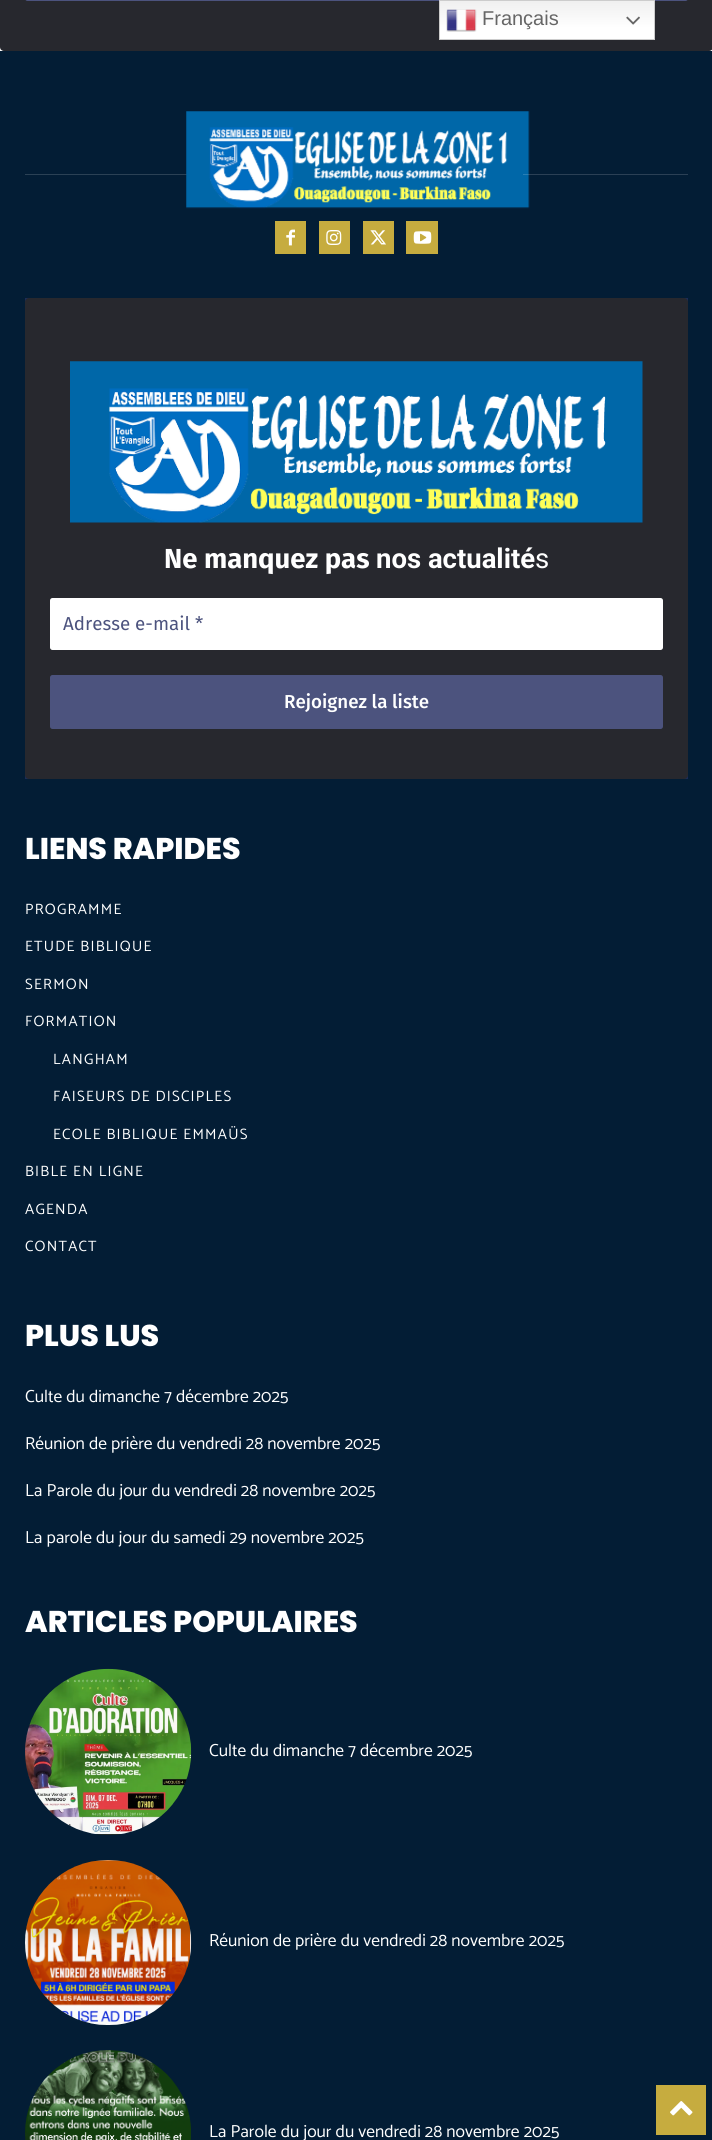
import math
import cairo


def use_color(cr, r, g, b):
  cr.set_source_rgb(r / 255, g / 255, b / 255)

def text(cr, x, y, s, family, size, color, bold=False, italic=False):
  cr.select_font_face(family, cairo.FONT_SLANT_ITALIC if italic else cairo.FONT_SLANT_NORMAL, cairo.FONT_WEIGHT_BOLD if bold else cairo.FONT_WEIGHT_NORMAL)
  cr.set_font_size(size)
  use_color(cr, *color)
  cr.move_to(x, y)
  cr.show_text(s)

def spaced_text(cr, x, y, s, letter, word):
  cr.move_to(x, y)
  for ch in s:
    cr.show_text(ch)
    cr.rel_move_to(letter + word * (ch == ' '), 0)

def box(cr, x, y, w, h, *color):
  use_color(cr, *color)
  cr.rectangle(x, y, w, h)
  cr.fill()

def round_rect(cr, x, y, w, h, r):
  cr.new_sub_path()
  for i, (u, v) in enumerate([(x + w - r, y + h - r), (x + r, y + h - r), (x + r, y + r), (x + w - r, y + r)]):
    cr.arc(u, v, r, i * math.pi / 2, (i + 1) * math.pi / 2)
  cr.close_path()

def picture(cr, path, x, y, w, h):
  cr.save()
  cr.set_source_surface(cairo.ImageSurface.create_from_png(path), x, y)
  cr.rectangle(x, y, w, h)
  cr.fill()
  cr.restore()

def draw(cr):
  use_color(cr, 255, 255, 255)
  cr.paint()
  use_color(cr, 39, 40, 46)
  round_rect(cr, 0, -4, 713, 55, 4)
  cr.fill()
  gradient = cairo.LinearGradient(547, 0, 547, 40)
  gradient.add_color_stop_rgba(0, 0.937, 0.937, 0.937, 1)
  gradient.add_color_stop_rgba(0.7, 1, 1, 1, 1)
  cr.set_source(gradient)
  cr.rectangle(440, 1, 214, 38)
  cr.fill()
  use_color(cr, 76, 83, 126)
  round_rect(cr, 25, -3, 663, 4, 2.5)
  cr.fill()
  cr.rectangle(439.5, 0.5, 215, 39)
  use_color(cr, 204, 204, 204)
  cr.set_line_width(1)
  cr.stroke()
  picture(cr, "img_01.png", 446, 9, 31, 23)
  picture(cr, "img_02.png", 626, 16, 14, 9)
  box(cr, 0, 51, 712, 2089, 3, 29, 53)
  box(cr, 25, 174, 166, 1, 43, 65, 85)
  picture(cr, "img_03.png", 186, 111, 344, 98)
  box(cr, 275, 221, 31, 33, 198, 172, 63)
  picture(cr, "img_04.png", 286, 229, 9, 17)
  box(cr, 319, 221, 31, 33, 198, 172, 63)
  picture(cr, "img_05.png", 326, 230, 16, 15)
  box(cr, 363, 221, 31, 33, 198, 172, 63)
  picture(cr, "img_06.png", 370, 230, 16, 15)
  box(cr, 406, 221, 32, 33, 198, 172, 63)
  picture(cr, "img_07.png", 413, 231, 19, 13)
  cr.set_source_rgba(1, 1, 1, 0.16)
  cr.rectangle(523, 174, 165, 1)
  cr.fill()
  box(cr, 25, 298, 663, 481, 28, 44, 89)
  use_color(cr, 39, 40, 46)
  round_rect(cr, 25, 298, 663, 481, 4)
  cr.fill()
  picture(cr, "img_08.png", 70, 361, 573, 162)
  use_color(cr, 255, 255, 255)
  round_rect(cr, 50, 598, 613, 52, 2.5)
  cr.fill()
  use_color(cr, 76, 83, 126)
  round_rect(cr, 50, 675, 613, 54, 2.5)
  cr.fill()
  picture(cr, "img_09.png", 25, 1668, 167, 167)
  picture(cr, "img_10.png", 25, 1860, 167, 165)
  picture(cr, "img_11.png", 25, 2050, 166, 90)
  box(cr, 656, 2085, 50, 50, 198, 172, 63)
  picture(cr, "img_12.png", 670, 2101, 23, 15)
  text(cr, 482, 25, "Français", "Liberation Sans", 20, (102, 102, 102))
  text(cr, 164, 568, "Ne manquez pas", "Fira Sans", 27.5, (255, 255, 255), bold=True)
  text(cr, 376, 568, "nos actualité", "Roboto", 27.5, (255, 255, 255), bold=True)
  text(cr, 535, 568, "s", "Roboto", 27.5, (255, 255, 255))
  text(cr, 63, 630, "Adresse e-mail *", "Fira Sans", 18.75, (76, 83, 126))
  text(cr, 284, 708, "Rejoignez la liste", "Fira Sans Medium", 18.75, (255, 255, 255))
  text(cr, 25, 859, "LIENS RAPIDES", "Poppins ExtraBold", 30, (255, 255, 255))
  cr.select_font_face("Catamaran")
  cr.set_font_size(15)
  spaced_text(cr, 25, 914, "PROGRAMME", 1.25, 0)
  spaced_text(cr, 25, 951, "ETUDE BIBLIQUE", 1.25, 0)
  spaced_text(cr, 25, 989, "SERMON", 1.25, 0)
  spaced_text(cr, 25, 1026, "FORMATION", 1.25, 0)
  spaced_text(cr, 53, 1064, "LANGHAM", 1.25, 0)
  spaced_text(cr, 53, 1101, "FAISEURS DE DISCIPLES", 1.25, 0)
  spaced_text(cr, 53, 1139, "ECOLE BIBLIQUE EMMAÜS", 1.25, 0)
  spaced_text(cr, 25, 1176, "BIBLE EN LIGNE", 1.25, 0)
  spaced_text(cr, 25, 1214, "AGENDA", 1.25, 0)
  spaced_text(cr, 25, 1251, "CONTACT", 1.25, 0)
  text(cr, 25, 1346, "PLUS LUS", "Poppins ExtraBold", 30, (255, 255, 255))
  text(cr, 25, 1402, "Culte du dimanche 7 décembre 2025", "Catamaran", 17.5, (255, 255, 255))
  text(cr, 25, 1449, "Réunion de prière du vendredi 28 novembre 2025", "Catamaran", 17.5, (255, 255, 255))
  text(cr, 25, 1496, "La Parole du jour du vendredi 28 novembre 2025", "Catamaran", 17.5, (255, 255, 255))
  text(cr, 25, 1543, "La parole du jour du samedi 29 novembre 2025", "Catamaran", 17.5, (255, 255, 255))
  text(cr, 25, 1632, "ARTICLES POPULAIRES", "Poppins ExtraBold", 30, (255, 255, 255))
  text(cr, 209, 1756, "Culte du dimanche 7 décembre 2025", "Catamaran", 17.5, (255, 255, 255))
  text(cr, 209, 1946, "Réunion de prière du vendredi 28 novembre 2025", "Catamaran", 17.5, (255, 255, 255))
  text(cr, 209, 2137, "La Parole du jour du vendredi 28 novembre 2025", "Catamaran", 17.5, (255, 255, 255))


surface = cairo.ImageSurface(cairo.FORMAT_RGB24, 712, 2140)
cr = cairo.Context(surface)
options = cairo.FontOptions()
options.set_hint_metrics(cairo.HINT_METRICS_OFF)
options.set_hint_style(cairo.HINT_STYLE_NONE)
cr.set_font_options(options)
cr.set_miter_limit(4)
draw(cr)
surface.write_to_png("out.png")
